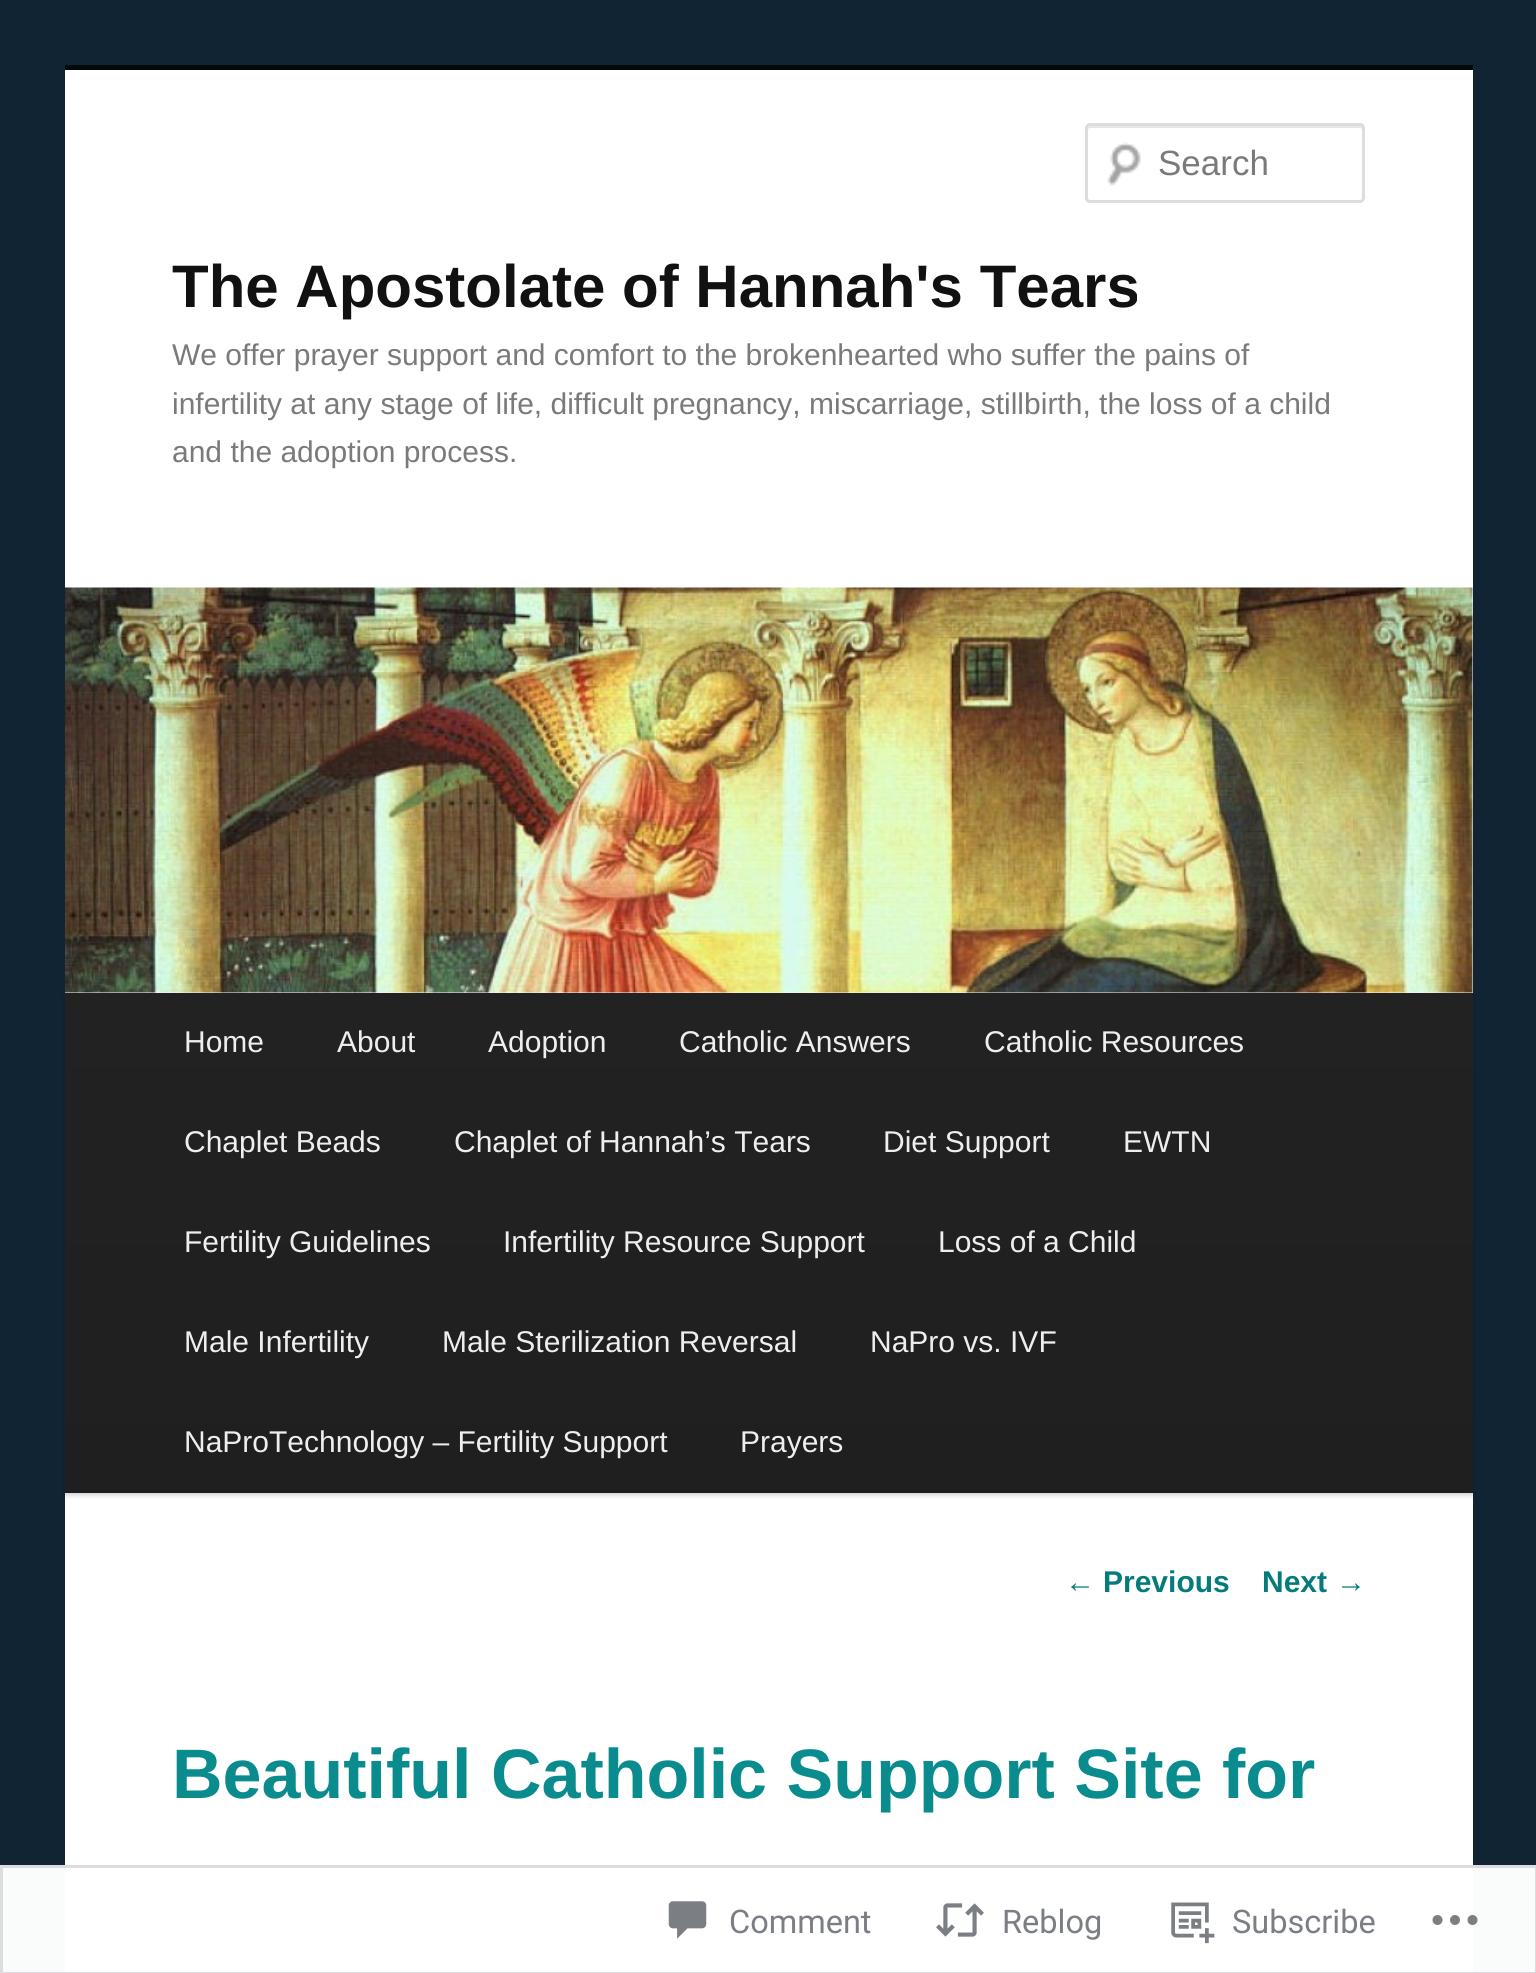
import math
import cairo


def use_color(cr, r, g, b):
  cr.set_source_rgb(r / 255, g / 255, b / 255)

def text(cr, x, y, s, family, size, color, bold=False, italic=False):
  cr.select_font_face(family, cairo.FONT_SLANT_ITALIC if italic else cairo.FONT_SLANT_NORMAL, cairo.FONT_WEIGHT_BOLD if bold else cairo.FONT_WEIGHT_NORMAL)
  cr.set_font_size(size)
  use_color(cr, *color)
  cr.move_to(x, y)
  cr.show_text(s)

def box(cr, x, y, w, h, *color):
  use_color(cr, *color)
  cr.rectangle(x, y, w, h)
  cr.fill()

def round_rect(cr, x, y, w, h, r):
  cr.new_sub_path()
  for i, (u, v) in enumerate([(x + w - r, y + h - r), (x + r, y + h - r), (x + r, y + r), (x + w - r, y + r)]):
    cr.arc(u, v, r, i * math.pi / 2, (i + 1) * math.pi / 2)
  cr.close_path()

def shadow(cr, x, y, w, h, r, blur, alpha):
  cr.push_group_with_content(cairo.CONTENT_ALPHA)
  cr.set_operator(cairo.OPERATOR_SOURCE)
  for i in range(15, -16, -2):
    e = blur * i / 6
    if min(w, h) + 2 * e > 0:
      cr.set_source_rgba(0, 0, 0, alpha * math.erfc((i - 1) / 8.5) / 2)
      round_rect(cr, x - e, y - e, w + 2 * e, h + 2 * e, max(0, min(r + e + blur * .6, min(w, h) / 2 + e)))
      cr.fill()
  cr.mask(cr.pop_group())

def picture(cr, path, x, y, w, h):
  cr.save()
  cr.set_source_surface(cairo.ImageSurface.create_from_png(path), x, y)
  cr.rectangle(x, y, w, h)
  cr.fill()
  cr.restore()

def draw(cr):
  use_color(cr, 17, 36, 51)
  cr.paint()
  box(cr, 0, 1865, 1536, 108, 250, 251, 251)
  box(cr, 65, 70, 1408, 1903, 255, 255, 255)
  box(cr, 65, 65, 1408, 5, 3, 8, 11)
  picture(cr, "img_01.png", 1107, 142, 34, 44)
  use_color(cr, 230, 230, 230)
  cr.new_path()
  cr.move_to(1090, 128)
  cr.line_to(1360, 128)
  cr.curve_to(1361, 128, 1362, 129, 1362, 130)
  cr.line_to(1362, 200)
  cr.curve_to(1363, 199, 1363, 198, 1363, 198)
  cr.line_to(1363, 128)
  cr.curve_to(1363, 126, 1362, 125, 1360, 125)
  cr.line_to(1090, 125)
  cr.curve_to(1089, 125, 1088, 126, 1088, 128)
  cr.line_to(1088, 130)
  cr.curve_to(1088, 129, 1089, 128, 1090, 128)
  cr.close_path()
  cr.fill()
  round_rect(cr, 1086.5, 124.5, 277, 77, 3.5)
  use_color(cr, 221, 221, 221)
  cr.set_line_width(3)
  cr.stroke()
  use_color(cr, 0, 0, 0)
  shadow(cr, 65, 995, 1408, 500, 0, 2.5, 0.2)
  picture(cr, "img_02.png", 65, 587, 1408, 406)
  gradient = cairo.LinearGradient(769, 993, 769, 1493)
  gradient.add_color_stop_rgba(0, 0.133, 0.133, 0.133, 1)
  gradient.add_color_stop_rgba(1, 0.122, 0.122, 0.122, 1)
  cr.set_source(gradient)
  cr.rectangle(65, 993, 1408, 500)
  cr.fill()
  cr.rectangle(1.5, 1866.5, 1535, 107)
  cr.set_source_rgba(0.863, 0.863, 0.871, 0.98)
  cr.stroke()
  picture(cr, "img_03.png", 668, 1901, 39, 38)
  picture(cr, "img_04.png", 936, 1903, 48, 34)
  picture(cr, "img_05.png", 1171, 1902, 44, 42)
  picture(cr, "img_06.png", 1432, 1915, 46, 10)
  text(cr, 1158, 175, "Search", "Liberation Sans", 35, (122, 122, 122))
  text(cr, 172, 307, "The Apostolate of Hannah's Tears", "Liberation Sans", 60, (17, 17, 17), bold=True)
  text(cr, 172, 365, "We offer prayer support and comfort to the brokenhearted who suffer the pains of", "Liberation Sans", 30, (122, 122, 122))
  text(cr, 172, 414, "infertility at any stage of life, difficult pregnancy, miscarriage, stillbirth, the loss of a child", "Liberation Sans", 30, (122, 122, 122))
  text(cr, 172, 462, "and the adoption process.", "Liberation Sans", 30, (122, 122, 122))
  text(cr, 184, 1052, "Home", "Liberation Sans", 30, (238, 238, 238))
  text(cr, 337, 1052, "About", "Liberation Sans", 30, (238, 238, 238))
  text(cr, 488, 1052, "Adoption", "Liberation Sans", 30, (238, 238, 238))
  text(cr, 679, 1052, "Catholic Answers", "Liberation Sans", 30, (238, 238, 238))
  text(cr, 984, 1052, "Catholic Resources", "Liberation Sans", 30, (238, 238, 238))
  text(cr, 184, 1152, "Chaplet Beads", "Liberation Sans", 30, (238, 238, 238))
  text(cr, 454, 1152, "Chaplet of Hannah’s Tears", "Liberation Sans", 30, (238, 238, 238))
  text(cr, 883, 1152, "Diet Support", "Liberation Sans", 30, (238, 238, 238))
  text(cr, 1123, 1152, "EWTN", "Liberation Sans", 30, (238, 238, 238))
  text(cr, 184, 1252, "Fertility Guidelines", "Liberation Sans", 30, (238, 238, 238))
  text(cr, 503, 1252, "Infertility Resource Support", "Liberation Sans", 30, (238, 238, 238))
  text(cr, 938, 1252, "Loss of a Child", "Liberation Sans", 30, (238, 238, 238))
  text(cr, 184, 1352, "Male Infertility", "Liberation Sans", 30, (238, 238, 238))
  text(cr, 442, 1352, "Male Sterilization Reversal", "Liberation Sans", 30, (238, 238, 238))
  text(cr, 870, 1352, "NaPro vs. IVF", "Liberation Sans", 30, (238, 238, 238))
  text(cr, 184, 1452, "NaProTechnology – Fertility Support", "Liberation Sans", 30, (238, 238, 238))
  text(cr, 740, 1452, "Prayers", "Liberation Sans", 30, (238, 238, 238))
  text(cr, 1065, 1592, "←", "Liberation Sans", 30, (6, 123, 125))
  text(cr, 1103, 1592, "Previous", "Liberation Sans", 30, (6, 123, 125), bold=True)
  text(cr, 1262, 1592, "Next", "Liberation Sans", 30, (6, 123, 125), bold=True)
  text(cr, 1336, 1592, "→", "Liberation Sans", 30, (6, 123, 125))
  text(cr, 172, 1798, "Beautiful Catholic Support Site for", "Liberation Sans", 70, (10, 140, 142), bold=True)
  text(cr, 729, 1933, "Comment", "Roboto", 32.5, (123, 127, 133))
  text(cr, 1002, 1933, "Reblog", "Roboto", 32.5, (123, 127, 133))
  text(cr, 1232, 1933, "Subscribe", "Roboto", 32.5, (123, 127, 133))


surface = cairo.ImageSurface(cairo.FORMAT_RGB24, 1536, 1973)
cr = cairo.Context(surface)
options = cairo.FontOptions()
options.set_hint_metrics(cairo.HINT_METRICS_OFF)
options.set_hint_style(cairo.HINT_STYLE_NONE)
cr.set_font_options(options)
cr.set_miter_limit(4)
draw(cr)
surface.write_to_png("out.png")
